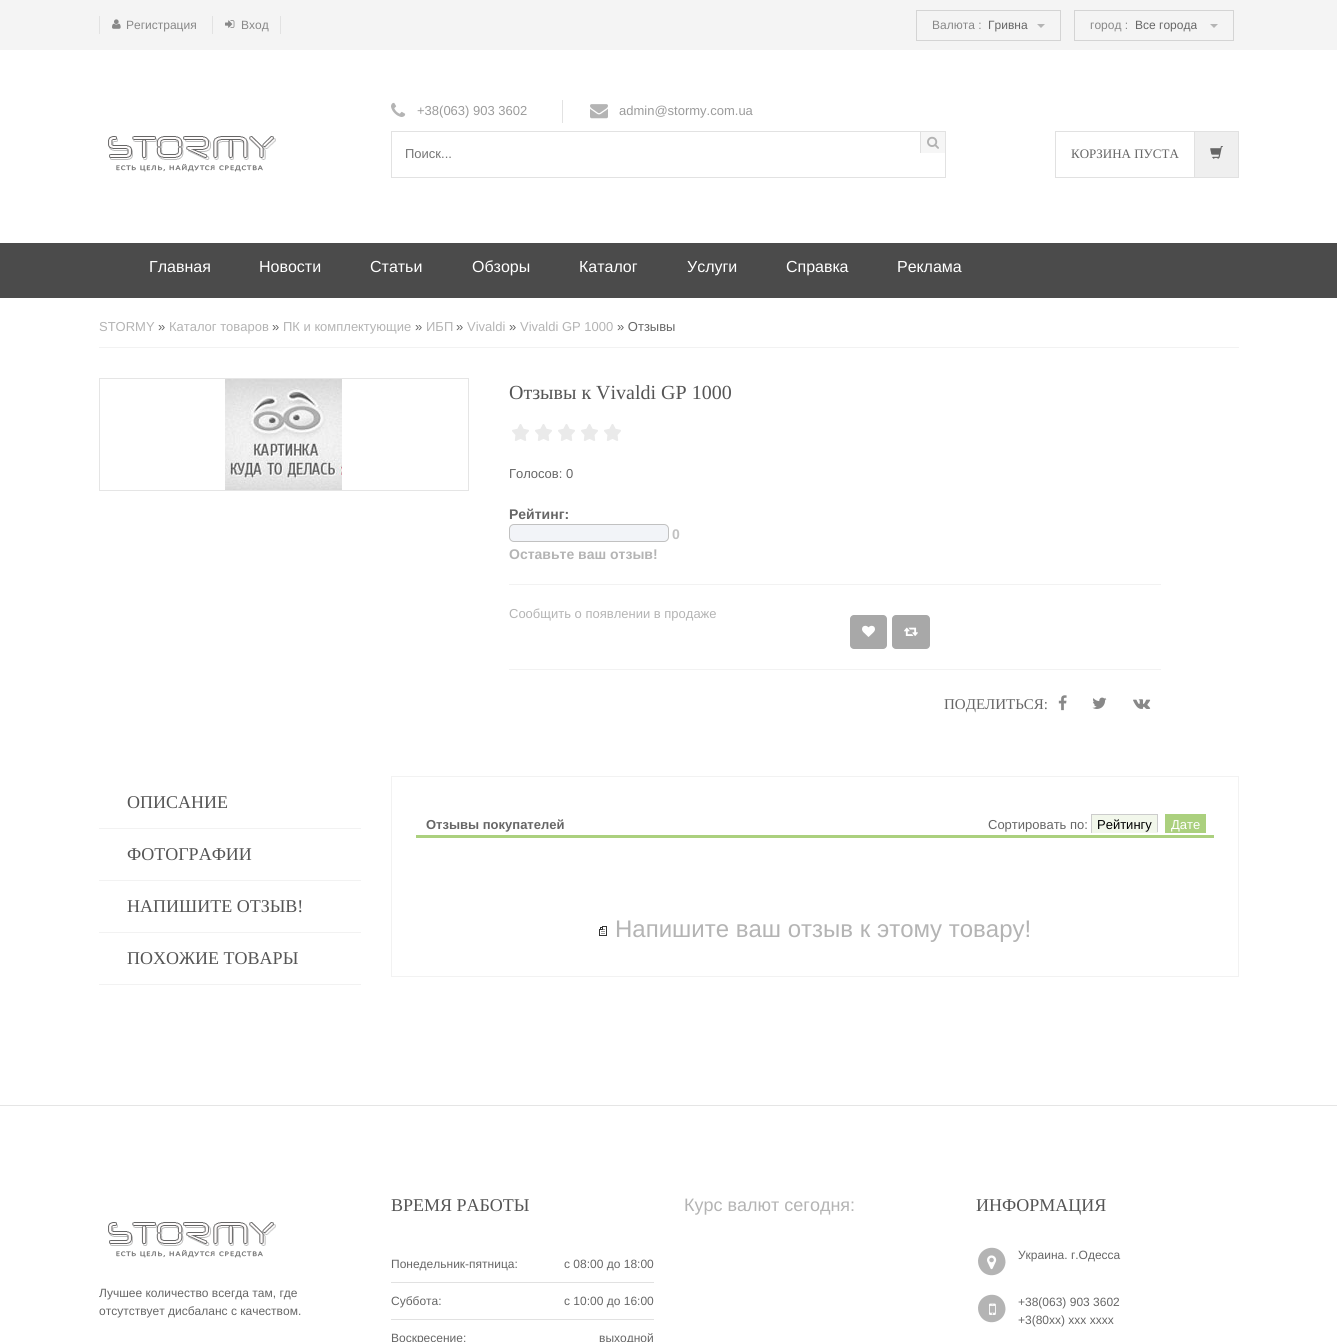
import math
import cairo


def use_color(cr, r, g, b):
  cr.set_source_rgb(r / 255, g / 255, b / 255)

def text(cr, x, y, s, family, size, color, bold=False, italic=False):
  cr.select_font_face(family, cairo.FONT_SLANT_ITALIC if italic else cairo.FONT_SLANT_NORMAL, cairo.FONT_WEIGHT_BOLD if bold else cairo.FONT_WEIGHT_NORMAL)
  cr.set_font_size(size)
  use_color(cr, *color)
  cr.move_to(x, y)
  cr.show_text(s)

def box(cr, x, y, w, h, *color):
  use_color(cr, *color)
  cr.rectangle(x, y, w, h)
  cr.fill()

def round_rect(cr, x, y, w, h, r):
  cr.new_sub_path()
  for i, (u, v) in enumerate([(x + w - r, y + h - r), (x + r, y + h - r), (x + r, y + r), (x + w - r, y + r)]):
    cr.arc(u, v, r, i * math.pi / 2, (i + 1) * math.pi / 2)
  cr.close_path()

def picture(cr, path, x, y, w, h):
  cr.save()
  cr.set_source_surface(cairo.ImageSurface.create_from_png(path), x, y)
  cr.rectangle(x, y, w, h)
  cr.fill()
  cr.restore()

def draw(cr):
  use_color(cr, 255, 255, 255)
  cr.paint()
  box(cr, 0, 0, 1337, 50, 244, 244, 244)
  box(cr, 99, 16, 1, 18, 226, 226, 226)
  picture(cr, "img_01.png", 112, 19, 9, 10)
  box(cr, 280, 16, 1, 18, 226, 226, 226)
  box(cr, 212, 16, 1, 18, 226, 226, 226)
  picture(cr, "img_02.png", 225, 20, 10, 8)
  cr.rectangle(916.5, 10.5, 144, 30)
  use_color(cr, 212, 212, 212)
  cr.set_line_width(1)
  cr.stroke()
  use_color(cr, 180, 180, 180)
  cr.new_path()
  cr.move_to(1037, 24)
  cr.line_to(1045, 24)
  cr.line_to(1041, 28)
  cr.close_path()
  cr.fill()
  cr.rectangle(1074.5, 10.5, 159, 30)
  use_color(cr, 212, 212, 212)
  cr.stroke()
  use_color(cr, 180, 180, 180)
  cr.new_path()
  cr.move_to(1210, 24)
  cr.line_to(1218, 24)
  cr.line_to(1214, 28)
  cr.close_path()
  cr.fill()
  picture(cr, "img_03.png", 108, 136, 168, 36)
  box(cr, 562, 100, 1, 23, 226, 226, 226)
  picture(cr, "img_04.png", 391, 102, 15, 15)
  picture(cr, "img_05.png", 590, 104, 18, 15)
  cr.rectangle(391.5, 131.5, 554, 46)
  cr.stroke()
  box(cr, 921, 132, 24, 21, 246, 246, 246)
  box(cr, 920, 132, 1, 21, 224, 224, 224)
  picture(cr, "img_06.png", 927, 136, 12, 13)
  cr.rectangle(1055.5, 131.5, 183, 46)
  use_color(cr, 225, 225, 225)
  cr.stroke()
  box(cr, 1195, 132, 43, 45, 239, 239, 239)
  box(cr, 1194, 132, 1, 45, 225, 225, 225)
  picture(cr, "img_07.png", 1210, 146, 13, 13)
  box(cr, 0, 243, 1337, 55, 75, 75, 75)
  box(cr, 99, 347, 1140, 1, 242, 242, 242)
  cr.rectangle(99.5, 378.5, 369, 112)
  use_color(cr, 229, 229, 229)
  cr.stroke()
  picture(cr, "img_08.png", 225, 379, 117, 111)
  picture(cr, "img_09.png", 512, 424, 109, 17)
  use_color(cr, 242, 244, 248)
  round_rect(cr, 509.5, 524.5, 159, 17, 4.5)
  cr.fill_preserve()
  use_color(cr, 193, 193, 193)
  cr.stroke()
  box(cr, 509, 584, 652, 1, 242, 242, 242)
  box(cr, 509, 669, 652, 1, 242, 242, 242)
  use_color(cr, 168, 168, 168)
  round_rect(cr, 850, 615, 37, 34, 4)
  cr.fill()
  picture(cr, "img_10.png", 862, 625, 13, 12)
  round_rect(cr, 892, 615, 38, 34, 4)
  cr.fill()
  picture(cr, "img_11.png", 904, 627, 14, 9)
  picture(cr, "img_12.png", 1058, 695, 9, 16)
  picture(cr, "img_13.png", 1092, 697, 15, 12)
  picture(cr, "img_14.png", 1133, 699, 18, 10)
  box(cr, 99, 828, 262, 1, 242, 242, 242)
  box(cr, 99, 880, 262, 1, 242, 242, 242)
  box(cr, 99, 932, 262, 1, 242, 242, 242)
  box(cr, 99, 984, 262, 1, 242, 242, 242)
  cr.rectangle(391.5, 776.5, 847, 200)
  cr.stroke()
  box(cr, 416, 835, 798, 3, 171, 208, 126)
  box(cr, 1091, 814, 67, 1, 204, 204, 204)
  box(cr, 1157, 814, 1, 19, 204, 204, 204)
  box(cr, 1091, 832, 67, 1, 242, 247, 235)
  box(cr, 1091, 814, 1, 19, 204, 204, 204)
  box(cr, 1092, 815, 65, 17, 242, 247, 235)
  box(cr, 1165, 814, 41, 19, 171, 208, 126)
  picture(cr, "img_15.png", 599, 926, 8, 10)
  box(cr, 0, 1105, 1337, 1, 229, 229, 229)
  picture(cr, "img_03.png", 108, 1222, 168, 36)
  box(cr, 391, 1282, 263, 1, 225, 225, 225)
  box(cr, 391, 1319, 263, 1, 225, 225, 225)
  use_color(cr, 180, 180, 180)
  cr.new_path()
  cr.move_to(1003.5, 1254.5)
  cr.curve_to(1005, 1257, 1005.5, 1260, 1005.5, 1262.5)
  cr.curve_to(1004.5, 1276, 986.5, 1280, 980, 1268.5)
  cr.curve_to(978.5, 1266, 978, 1263.5, 978, 1260.5)
  cr.curve_to(979, 1247, 997, 1243, 1003.5, 1254.5)
  cr.close_path()
  cr.fill()
  picture(cr, "img_16.png", 987, 1255, 10, 15)
  cr.new_path()
  cr.move_to(1003.5, 1301.5)
  cr.curve_to(1005, 1304, 1005.5, 1307, 1005.5, 1309.5)
  cr.curve_to(1004.5, 1323, 986.5, 1327, 980, 1315.5)
  cr.curve_to(978.5, 1313, 978, 1310.5, 978, 1307.5)
  cr.curve_to(979, 1294, 997, 1290, 1003.5, 1301.5)
  cr.close_path()
  cr.fill()
  picture(cr, "img_17.png", 989, 1303, 7, 12)
  text(cr, 126, 29, "Регистрация", "Liberation Sans", 12, (136, 136, 136))
  text(cr, 241, 29, "Вход", "Liberation Sans", 12, (136, 136, 136))
  text(cr, 932, 29, "Валюта :", "Liberation Sans", 12, (136, 136, 136))
  text(cr, 988, 29, "Гривна", "Liberation Sans", 12, (102, 102, 102))
  text(cr, 1090, 29, "город :", "Liberation Sans", 12, (136, 136, 136))
  text(cr, 1135, 29, "Все города", "Liberation Sans", 12, (102, 102, 102))
  text(cr, 417, 115, "+38(063) 903 3602", "Liberation Sans", 13, (155, 155, 155))
  text(cr, 619, 115, "admin@stormy.com.ua", "Liberation Sans", 13, (155, 155, 155))
  text(cr, 405, 158, "Поиск...", "Liberation Sans", 13, (117, 117, 117))
  text(cr, 1071, 158, "КОРЗИНА ПУСТА", "Liberation Serif", 13, (102, 102, 102))
  text(cr, 149, 272, "Главная", "Liberation Sans", 16, (255, 255, 255))
  text(cr, 259, 272, "Новости", "Liberation Sans", 16, (255, 255, 255))
  text(cr, 370, 272, "Статьи", "Liberation Sans", 16, (255, 255, 255))
  text(cr, 472, 272, "Обзоры", "Liberation Sans", 16, (255, 255, 255))
  text(cr, 579, 272, "Каталог", "Liberation Sans", 16, (255, 255, 255))
  text(cr, 687, 272, "Услуги", "Liberation Sans", 16, (255, 255, 255))
  text(cr, 786, 272, "Справка", "Liberation Sans", 16, (255, 255, 255))
  text(cr, 897, 272, "Реклама", "Liberation Sans", 16, (255, 255, 255))
  text(cr, 99, 331, "STORMY", "Liberation Sans", 13, (180, 180, 180))
  text(cr, 158, 331, "»", "Liberation Sans", 13, (102, 102, 102))
  text(cr, 169, 331, "Каталог товаров", "Liberation Sans", 13, (180, 180, 180))
  text(cr, 272, 331, "»", "Liberation Sans", 13, (102, 102, 102))
  text(cr, 283, 331, "ПК и комплектующие", "Liberation Sans", 13, (180, 180, 180))
  text(cr, 415, 331, "»", "Liberation Sans", 13, (102, 102, 102))
  text(cr, 426, 331, "ИБП", "Liberation Sans", 13, (180, 180, 180))
  text(cr, 456, 331, "»", "Liberation Sans", 13, (102, 102, 102))
  text(cr, 467, 331, "Vivaldi", "Liberation Sans", 13, (180, 180, 180))
  text(cr, 509, 331, "»", "Liberation Sans", 13, (102, 102, 102))
  text(cr, 520, 331, "Vivaldi GP 1000", "Liberation Sans", 13, (180, 180, 180))
  text(cr, 617, 331, "» Отзывы", "Liberation Sans", 13, (102, 102, 102))
  text(cr, 509, 399, "Отзывы к Vivaldi GP 1000", "Liberation Serif", 20, (85, 85, 85))
  text(cr, 509, 478, "Голосов: 0", "Liberation Sans", 13, (102, 102, 102))
  text(cr, 509, 519, "Рейтинг:", "Liberation Sans", 14, (102, 102, 102), bold=True)
  text(cr, 672, 539, "0", "Liberation Sans", 14, (193, 193, 193), bold=True)
  text(cr, 509, 559, "Оставьте ваш отзыв!", "Liberation Sans", 14, (180, 180, 180), bold=True)
  text(cr, 509, 618, "Сообщить о появлении в продаже", "Liberation Sans", 13, (180, 180, 180))
  text(cr, 944, 709, "ПОДЕЛИТЬСЯ:", "Liberation Serif", 15, (102, 102, 102))
  text(cr, 127, 808, "ОПИСАНИЕ", "Liberation Serif", 18, (85, 85, 85))
  text(cr, 127, 860, "ФОТОГРАФИИ", "Liberation Serif", 18, (85, 85, 85))
  text(cr, 127, 912, "НАПИШИТЕ ОТЗЫВ!", "Liberation Serif", 18, (85, 85, 85))
  text(cr, 127, 964, "ПОХОЖИЕ ТОВАРЫ", "Liberation Serif", 18, (85, 85, 85))
  text(cr, 426, 829, "Отзывы покупателей", "Liberation Sans", 13, (102, 102, 102), bold=True)
  text(cr, 988, 829, "Сортировать по:", "Liberation Sans", 13, (102, 102, 102))
  text(cr, 1097, 829, "Рейтингу", "Liberation Sans", 13, (0, 0, 0))
  text(cr, 1171, 829, "Дате", "Liberation Sans", 13, (255, 255, 255))
  text(cr, 615, 937, "Напишите ваш отзыв к этому товару!", "Liberation Sans", 24, (180, 180, 180))
  text(cr, 99, 1297, "Лучшее количество всегда там, где", "Liberation Sans", 12, (102, 102, 102))
  text(cr, 99, 1315, "отсутствует дисбаланс с качеством.", "Liberation Sans", 12, (102, 102, 102))
  text(cr, 391, 1211, "ВРЕМЯ РАБОТЫ", "Liberation Serif", 18, (85, 85, 85))
  text(cr, 391, 1268, "Понедельник-пятница:", "Liberation Sans", 12, (102, 102, 102))
  text(cr, 564, 1268, "с 08:00 до 18:00", "Liberation Sans", 12, (102, 102, 102))
  text(cr, 391, 1305, "Суббота:", "Liberation Sans", 12, (102, 102, 102))
  text(cr, 564, 1305, "с 10:00 до 16:00", "Liberation Sans", 12, (102, 102, 102))
  text(cr, 391, 1342, "Воскресение:", "Liberation Sans", 12, (102, 102, 102))
  text(cr, 599, 1342, "выходной", "Liberation Sans", 12, (102, 102, 102))
  text(cr, 684, 1211, "Курс валют сегодня:", "Liberation Sans", 18, (180, 180, 180))
  text(cr, 976, 1211, "ИНФОРМАЦИЯ", "Liberation Serif", 18, (85, 85, 85))
  text(cr, 1018, 1259, "Украина. г.Одесса", "Liberation Sans", 12, (102, 102, 102))
  text(cr, 1018, 1306, "+38(063) 903 3602", "Liberation Sans", 12, (102, 102, 102))
  text(cr, 1018, 1324, "+3(80xx) xxx xxxx", "Liberation Sans", 12, (102, 102, 102))


surface = cairo.ImageSurface(cairo.FORMAT_RGB24, 1337, 1342)
cr = cairo.Context(surface)
options = cairo.FontOptions()
options.set_hint_metrics(cairo.HINT_METRICS_OFF)
options.set_hint_style(cairo.HINT_STYLE_NONE)
cr.set_font_options(options)
cr.set_miter_limit(4)
draw(cr)
surface.write_to_png("out.png")
